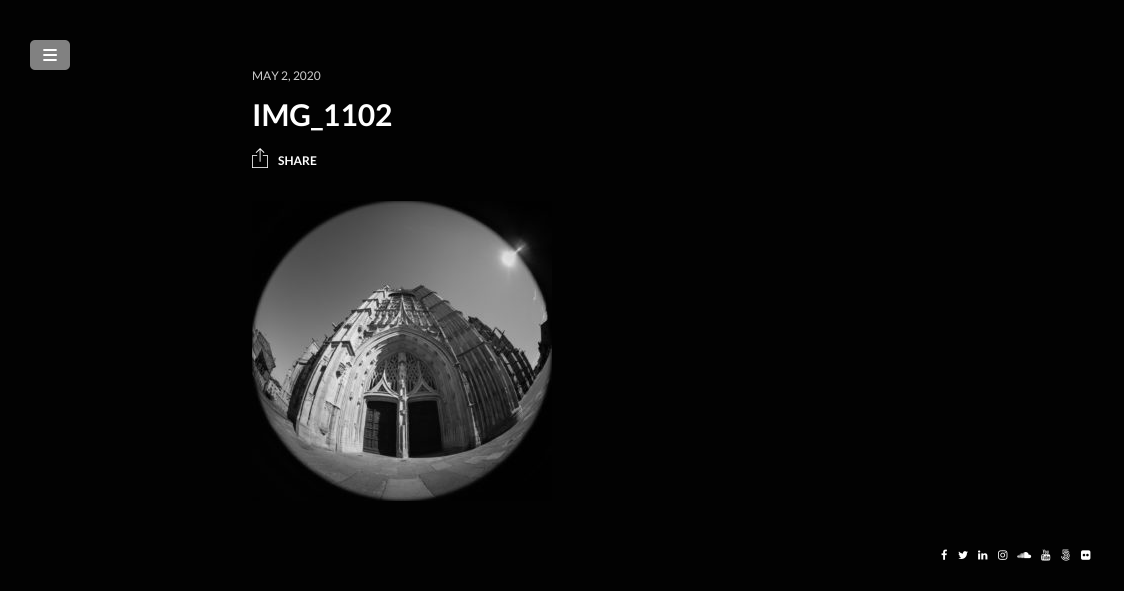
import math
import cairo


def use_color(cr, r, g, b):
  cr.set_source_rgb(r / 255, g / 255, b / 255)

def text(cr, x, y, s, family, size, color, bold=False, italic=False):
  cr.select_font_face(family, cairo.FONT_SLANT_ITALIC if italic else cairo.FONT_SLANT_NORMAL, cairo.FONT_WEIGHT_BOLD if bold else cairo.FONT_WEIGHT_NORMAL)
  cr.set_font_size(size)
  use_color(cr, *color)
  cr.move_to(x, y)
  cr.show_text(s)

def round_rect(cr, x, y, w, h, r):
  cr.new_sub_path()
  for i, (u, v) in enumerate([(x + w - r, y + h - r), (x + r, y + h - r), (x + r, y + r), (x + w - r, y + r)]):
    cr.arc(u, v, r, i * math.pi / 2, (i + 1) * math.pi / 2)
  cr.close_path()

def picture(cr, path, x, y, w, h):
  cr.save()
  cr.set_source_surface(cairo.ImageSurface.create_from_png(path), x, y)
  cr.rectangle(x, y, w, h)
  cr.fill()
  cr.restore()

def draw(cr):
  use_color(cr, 2, 2, 2)
  cr.paint()
  use_color(cr, 129, 129, 129)
  round_rect(cr, 30, 40, 40, 30, 5)
  cr.fill()
  picture(cr, "img_01.png", 43, 49, 14, 12)
  picture(cr, "img_02.png", 252, 148, 16, 20)
  picture(cr, "img_03.png", 252, 201, 300, 300)
  picture(cr, "img_04.png", 941, 549, 6, 11)
  picture(cr, "img_05.png", 958, 551, 10, 8)
  picture(cr, "img_06.png", 978, 550, 10, 10)
  picture(cr, "img_07.png", 998, 550, 10, 10)
  picture(cr, "img_08.png", 1017, 552, 15, 7)
  picture(cr, "img_09.png", 1041, 549, 10, 12)
  picture(cr, "img_10.png", 1061, 549, 9, 12)
  picture(cr, "img_11.png", 1081, 550, 10, 10)
  text(cr, 252, 80, "MAY 2, 2020", "Lato", 12, (204, 204, 204))
  text(cr, 252, 126, "IMG_1102", "Lato", 30, (255, 255, 255), bold=True)
  text(cr, 278, 165, "SHARE", "Lato", 12, (255, 255, 255), bold=True)


surface = cairo.ImageSurface(cairo.FORMAT_RGB24, 1124, 591)
cr = cairo.Context(surface)
options = cairo.FontOptions()
options.set_hint_metrics(cairo.HINT_METRICS_OFF)
options.set_hint_style(cairo.HINT_STYLE_NONE)
cr.set_font_options(options)
cr.set_miter_limit(4)
draw(cr)
surface.write_to_png("out.png")
